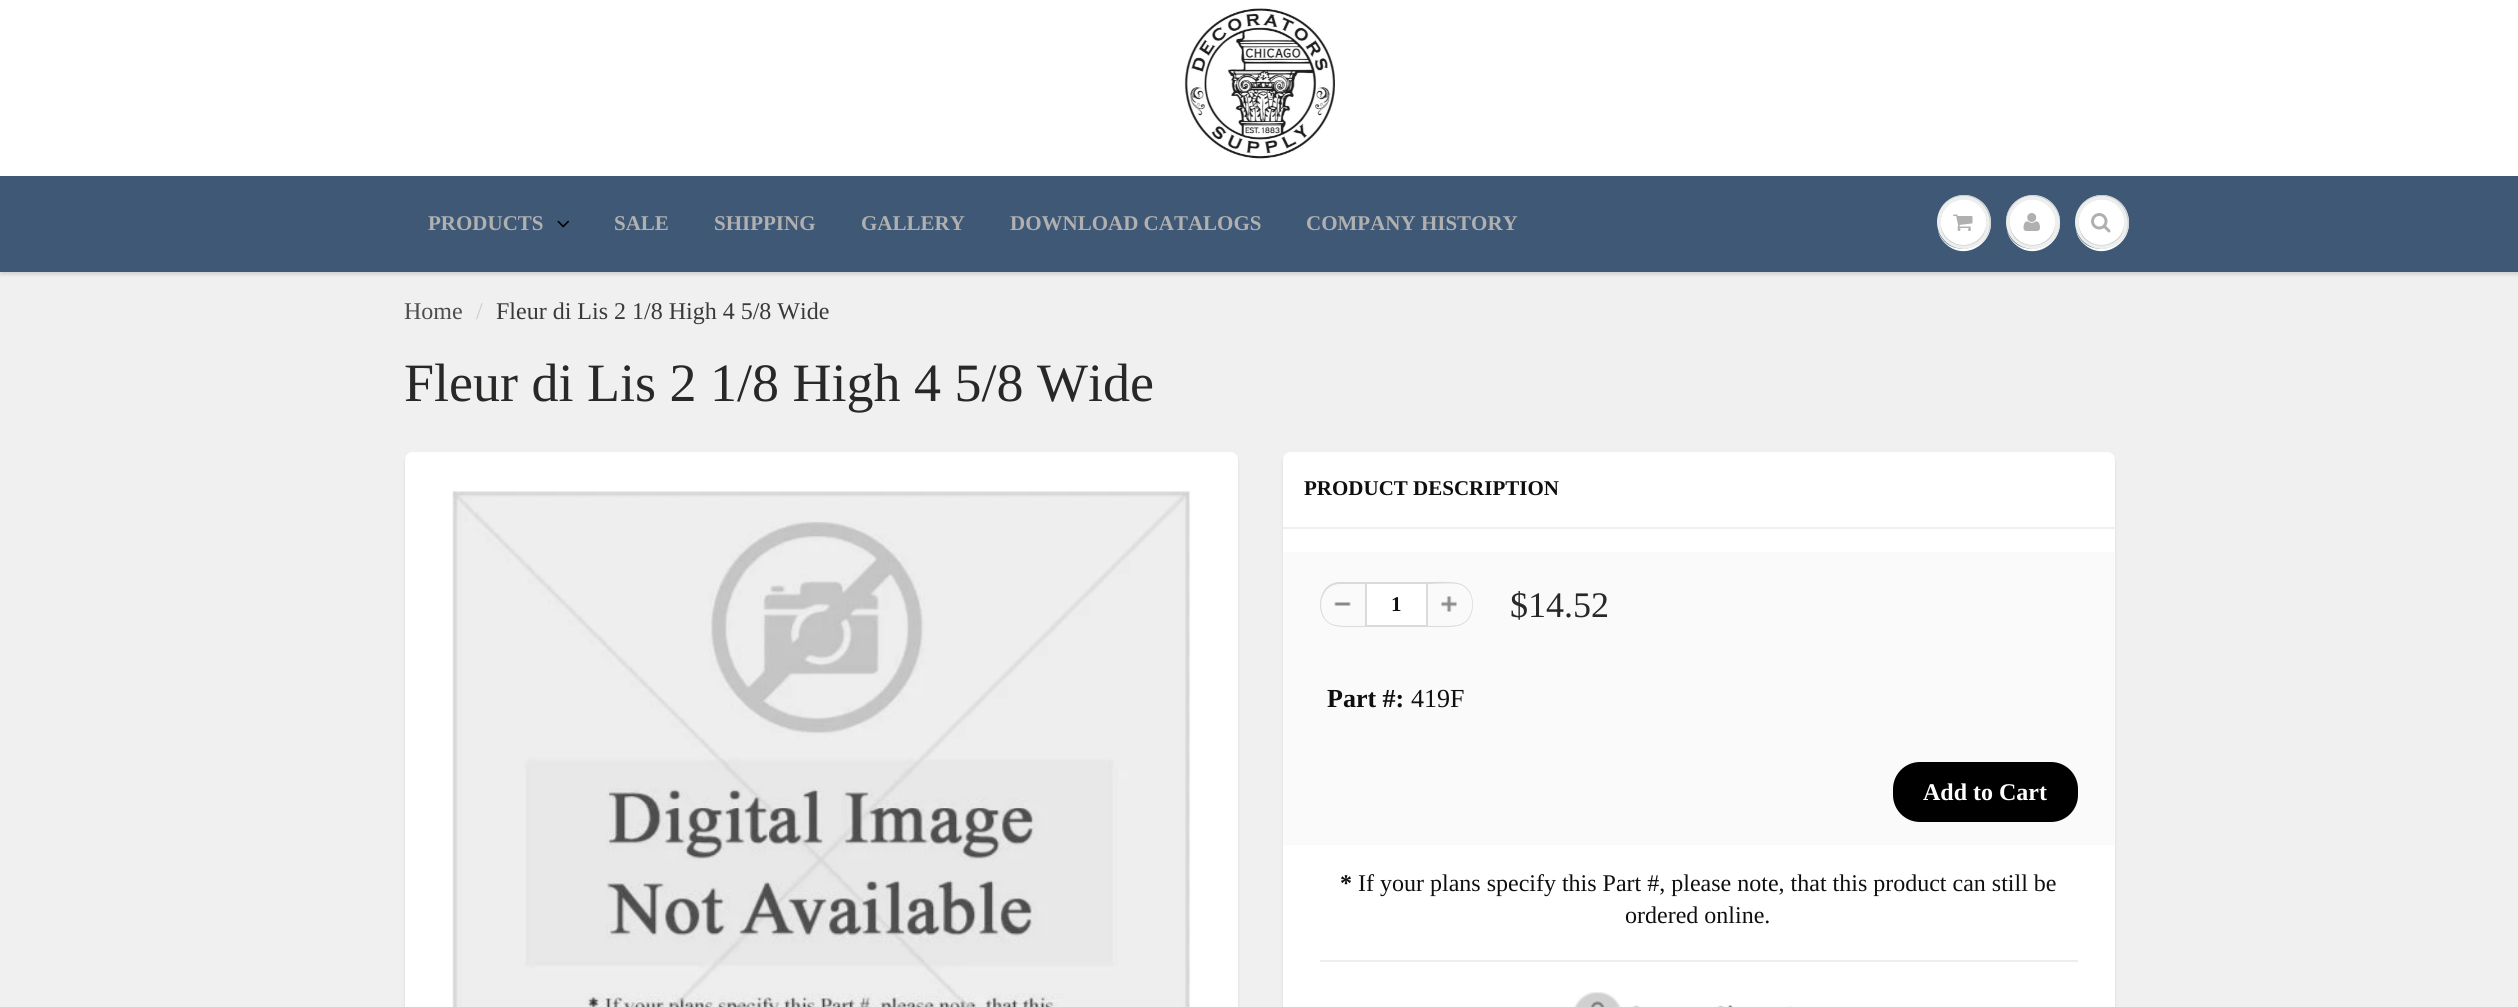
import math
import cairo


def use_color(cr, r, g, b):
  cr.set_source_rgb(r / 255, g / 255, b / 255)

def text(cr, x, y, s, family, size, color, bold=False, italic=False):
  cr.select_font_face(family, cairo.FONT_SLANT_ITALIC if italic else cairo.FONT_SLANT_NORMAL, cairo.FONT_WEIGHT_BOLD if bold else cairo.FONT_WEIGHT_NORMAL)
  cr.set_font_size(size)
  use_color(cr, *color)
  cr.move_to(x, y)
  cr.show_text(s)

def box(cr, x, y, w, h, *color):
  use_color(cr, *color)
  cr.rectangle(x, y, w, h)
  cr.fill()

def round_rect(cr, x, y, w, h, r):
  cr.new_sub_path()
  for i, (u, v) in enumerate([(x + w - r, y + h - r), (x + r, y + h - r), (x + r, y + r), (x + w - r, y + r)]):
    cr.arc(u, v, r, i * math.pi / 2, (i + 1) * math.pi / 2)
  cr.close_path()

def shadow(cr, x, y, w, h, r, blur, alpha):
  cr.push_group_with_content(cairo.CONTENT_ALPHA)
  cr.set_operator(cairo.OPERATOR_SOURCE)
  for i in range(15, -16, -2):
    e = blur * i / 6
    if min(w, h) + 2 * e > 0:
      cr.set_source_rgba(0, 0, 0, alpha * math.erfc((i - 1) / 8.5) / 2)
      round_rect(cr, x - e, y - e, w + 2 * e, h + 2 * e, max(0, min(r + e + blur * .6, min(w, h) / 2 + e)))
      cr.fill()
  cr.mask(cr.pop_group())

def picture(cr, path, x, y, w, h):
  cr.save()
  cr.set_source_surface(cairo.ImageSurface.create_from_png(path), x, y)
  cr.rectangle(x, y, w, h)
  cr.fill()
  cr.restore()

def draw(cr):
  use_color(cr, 255, 255, 255)
  cr.paint()
  picture(cr, "img_01.png", 1184, 8, 151, 151)
  box(cr, 0, 272, 2518, 735, 240, 240, 240)
  use_color(cr, 11, 25, 28)
  shadow(cr, 0, 177, 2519, 98, 0, 1.5, 0.12)
  box(cr, 0, 176, 2518, 96, 62, 88, 118)
  box(cr, 0, 175, 2518, 1, 255, 255, 255)
  picture(cr, "img_02.png", 557, 220, 12, 8)
  cr.new_path()
  cr.move_to(1938, 230)
  cr.curve_to(1939, 236, 1942, 241, 1947, 245)
  cr.curve_to(1967, 262, 1997, 241, 1990, 216)
  cr.curve_to(1997, 250, 1947, 262, 1938, 230)
  cr.close_path()
  cr.fill()
  use_color(cr, 237, 239, 239)
  cr.arc(1964, 222, 27, 0, 2 * math.pi)
  cr.fill()
  use_color(cr, 201, 203, 203)
  cr.new_path()
  cr.move_to(1964, 196)
  cr.curve_to(1985, 196, 1997, 222, 1985, 238)
  cr.curve_to(2002, 217, 1978, 185, 1952, 198)
  cr.curve_to(1946, 201, 1942, 206, 1939, 212)
  cr.curve_to(1944, 202, 1953, 196, 1964, 196)
  cr.close_path()
  cr.fill()
  cr.new_path()
  cr.move_to(1941, 223)
  cr.curve_to(1940, 253, 1987, 253, 1986, 223)
  cr.curve_to(1985, 251, 1942, 251, 1941, 223)
  cr.close_path()
  cr.fill()
  use_color(cr, 255, 255, 255)
  cr.arc(1963.5, 222.5, 22.5, 0, 2 * math.pi)
  cr.fill()
  cr.new_path()
  cr.move_to(1964, 201)
  cr.curve_to(1980, 201, 1987, 215, 1985, 228)
  cr.curve_to(1987, 222, 1986, 215, 1982, 210)
  cr.curve_to(1967, 187, 1933, 207, 1943, 231)
  cr.curve_to(1939, 218, 1946, 201, 1964, 201)
  cr.close_path()
  cr.fill()
  picture(cr, "img_03.png", 1953, 214, 20, 17)
  cr.new_path()
  cr.move_to(2007, 230)
  cr.curve_to(2008, 236, 2011, 241, 2016, 245)
  cr.curve_to(2036, 262, 2066, 241, 2059, 216)
  cr.curve_to(2066, 250, 2016, 262, 2007, 230)
  cr.close_path()
  cr.fill()
  use_color(cr, 237, 239, 239)
  cr.arc(2033, 222, 27, 0, 2 * math.pi)
  cr.fill()
  use_color(cr, 201, 203, 203)
  cr.new_path()
  cr.move_to(2032, 196)
  cr.curve_to(2047, 196, 2059, 208, 2060, 223)
  cr.curve_to(2060, 217, 2059, 212, 2055, 207)
  cr.curve_to(2040, 185, 2005, 196, 2006, 223)
  cr.curve_to(2007, 208, 2018, 196, 2032, 196)
  cr.close_path()
  cr.move_to(2010, 223)
  cr.curve_to(2009, 253, 2056, 253, 2055, 223)
  cr.curve_to(2054, 251, 2011, 251, 2010, 223)
  cr.close_path()
  cr.fill()
  use_color(cr, 255, 255, 255)
  cr.arc(2032.5, 222.5, 22.5, 0, 2 * math.pi)
  cr.fill()
  cr.new_path()
  cr.move_to(2032, 201)
  cr.curve_to(2050, 201, 2057, 218, 2053, 231)
  cr.curve_to(2063, 207, 2029, 187, 2014, 210)
  cr.curve_to(2010, 215, 2009, 222, 2011, 228)
  cr.curve_to(2009, 215, 2016, 201, 2032, 201)
  cr.close_path()
  cr.fill()
  picture(cr, "img_04.png", 2023, 213, 17, 18)
  cr.new_path()
  cr.move_to(2076, 230)
  cr.curve_to(2077, 236, 2080, 241, 2085, 245)
  cr.curve_to(2105, 262, 2135, 241, 2128, 216)
  cr.curve_to(2135, 250, 2085, 262, 2076, 230)
  cr.close_path()
  cr.fill()
  use_color(cr, 237, 239, 239)
  cr.arc(2102, 222, 27, 0, 2 * math.pi)
  cr.fill()
  use_color(cr, 201, 203, 203)
  cr.new_path()
  cr.move_to(2102, 196)
  cr.curve_to(2123, 196, 2135, 222, 2123, 238)
  cr.curve_to(2140, 217, 2116, 185, 2090, 198)
  cr.curve_to(2084, 201, 2080, 206, 2077, 212)
  cr.curve_to(2082, 202, 2091, 196, 2102, 196)
  cr.close_path()
  cr.fill()
  cr.new_path()
  cr.move_to(2124, 223)
  cr.curve_to(2123, 251, 2080, 251, 2079, 223)
  cr.curve_to(2078, 253, 2125, 253, 2124, 223)
  cr.close_path()
  cr.fill()
  use_color(cr, 255, 255, 255)
  cr.arc(2101.5, 222.5, 22.5, 0, 2 * math.pi)
  cr.fill()
  cr.new_path()
  cr.move_to(2102, 201)
  cr.curve_to(2118, 201, 2125, 215, 2123, 228)
  cr.curve_to(2125, 222, 2124, 215, 2120, 210)
  cr.curve_to(2105, 187, 2071, 207, 2081, 231)
  cr.curve_to(2077, 218, 2084, 201, 2102, 201)
  cr.close_path()
  cr.fill()
  picture(cr, "img_05.png", 2091, 213, 20, 20)
  use_color(cr, 11, 25, 28)
  shadow(cr, 405, 455, 833, 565, 8, 1.5, 0.1)
  use_color(cr, 255, 255, 255)
  round_rect(cr, 405, 452, 833, 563, 8)
  cr.fill()
  picture(cr, "img_06.png", 452, 491, 739, 516)
  use_color(cr, 11, 25, 28)
  shadow(cr, 1283, 455, 832, 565, 8, 1.5, 0.1)
  use_color(cr, 255, 255, 255)
  round_rect(cr, 1283, 452, 832, 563, 8)
  cr.fill()
  box(cr, 1283, 527, 832, 2, 239, 239, 239)
  box(cr, 1283, 552, 832, 293, 250, 250, 250)
  picture(cr, "img_07.png", 1334, 602, 17, 4)
  use_color(cr, 215, 219, 219)
  cr.set_fill_rule(cairo.FILL_RULE_EVEN_ODD)
  cr.new_path()
  cr.move_to(1340, 582)
  cr.line_to(1365, 582)
  cr.line_to(1365, 627)
  cr.curve_to(1357, 627, 1339, 628, 1332, 625)
  cr.curve_to(1313, 617, 1317, 582, 1340, 582)
  cr.close_path()
  cr.move_to(1340, 584)
  cr.line_to(1365, 584)
  cr.line_to(1365, 626)
  cr.curve_to(1357, 626, 1339, 627, 1332, 624)
  cr.curve_to(1315, 617, 1318, 584, 1340, 584)
  cr.close_path()
  cr.fill()
  use_color(cr, 255, 255, 255)
  cr.rectangle(1366, 583, 61, 43)
  cr.fill_preserve()
  use_color(cr, 215, 219, 219)
  cr.stroke()
  picture(cr, "img_08.png", 1441, 596, 16, 16)
  cr.new_path()
  cr.move_to(1428, 582)
  cr.curve_to(1436, 582, 1454, 581, 1461, 584)
  cr.curve_to(1477, 590, 1477, 619, 1461, 625)
  cr.curve_to(1454, 628, 1436, 627, 1428, 627)
  cr.close_path()
  cr.move_to(1428, 584)
  cr.curve_to(1436, 584, 1454, 582, 1461, 585)
  cr.curve_to(1476, 591, 1476, 618, 1461, 624)
  cr.curve_to(1454, 627, 1436, 626, 1428, 626)
  cr.close_path()
  cr.fill()
  use_color(cr, 0, 0, 0)
  round_rect(cr, 1893, 762, 185, 60, 27)
  cr.fill()
  box(cr, 1320, 960, 758, 2, 238, 238, 238)
  picture(cr, "img_09.png", 1574, 992, 218, 15)
  text(cr, 428, 230, "PRODUCTS", "Liberation Serif", 21, (176, 176, 176), bold=True)
  text(cr, 614, 230, "SALE", "Liberation Serif", 21, (176, 176, 176), bold=True)
  text(cr, 714, 230, "SHIPPING", "Liberation Serif", 21, (176, 176, 176), bold=True)
  text(cr, 861, 230, "GALLERY", "Liberation Serif", 21, (176, 176, 176), bold=True)
  text(cr, 1010, 230, "DOWNLOAD CATALOGS", "Liberation Serif", 21, (176, 176, 176), bold=True)
  text(cr, 1306, 230, "COMPANY HISTORY", "Liberation Serif", 21, (176, 176, 176), bold=True)
  text(cr, 404, 319, "Home", "Liberation Serif", 24, (78, 78, 78))
  text(cr, 476, 319, "/", "Liberation Serif", 24, (204, 204, 204))
  text(cr, 496, 319, "Fleur di Lis 2 1/8 High 4 5/8 Wide", "Liberation Serif", 24, (57, 57, 57))
  text(cr, 404, 401, "Fleur di Lis 2 1/8 High 4 5/8 Wide", "Liberation Serif", 54, (40, 40, 39))
  text(cr, 1304, 495, "PRODUCT DESCRIPTION", "Liberation Serif", 21, (15, 15, 15), bold=True)
  text(cr, 1391, 611, "1", "Liberation Serif", 21, (15, 15, 15), bold=True)
  text(cr, 1510, 617, "$14.52", "Liberation Serif", 36, (40, 40, 39))
  text(cr, 1327, 707, "Part #:", "Liberation Serif", 26, (15, 15, 15), bold=True)
  text(cr, 1411, 707, "419F", "Liberation Serif", 26, (15, 15, 15))
  text(cr, 1923, 800, "Add to Cart", "Liberation Serif", 24, (255, 255, 255), bold=True)
  text(cr, 1340, 891, "*", "Liberation Serif", 24, (15, 15, 15), bold=True)
  text(cr, 1358, 891, "If your plans specify this Part #, please note, that this product can still be", "Liberation Serif", 24, (15, 15, 15))
  text(cr, 1625, 923, "ordered online.", "Liberation Serif", 24, (15, 15, 15))


surface = cairo.ImageSurface(cairo.FORMAT_RGB24, 2518, 1007)
cr = cairo.Context(surface)
options = cairo.FontOptions()
options.set_hint_metrics(cairo.HINT_METRICS_OFF)
options.set_hint_style(cairo.HINT_STYLE_NONE)
cr.set_font_options(options)
cr.set_miter_limit(4)
draw(cr)
surface.write_to_png("out.png")
